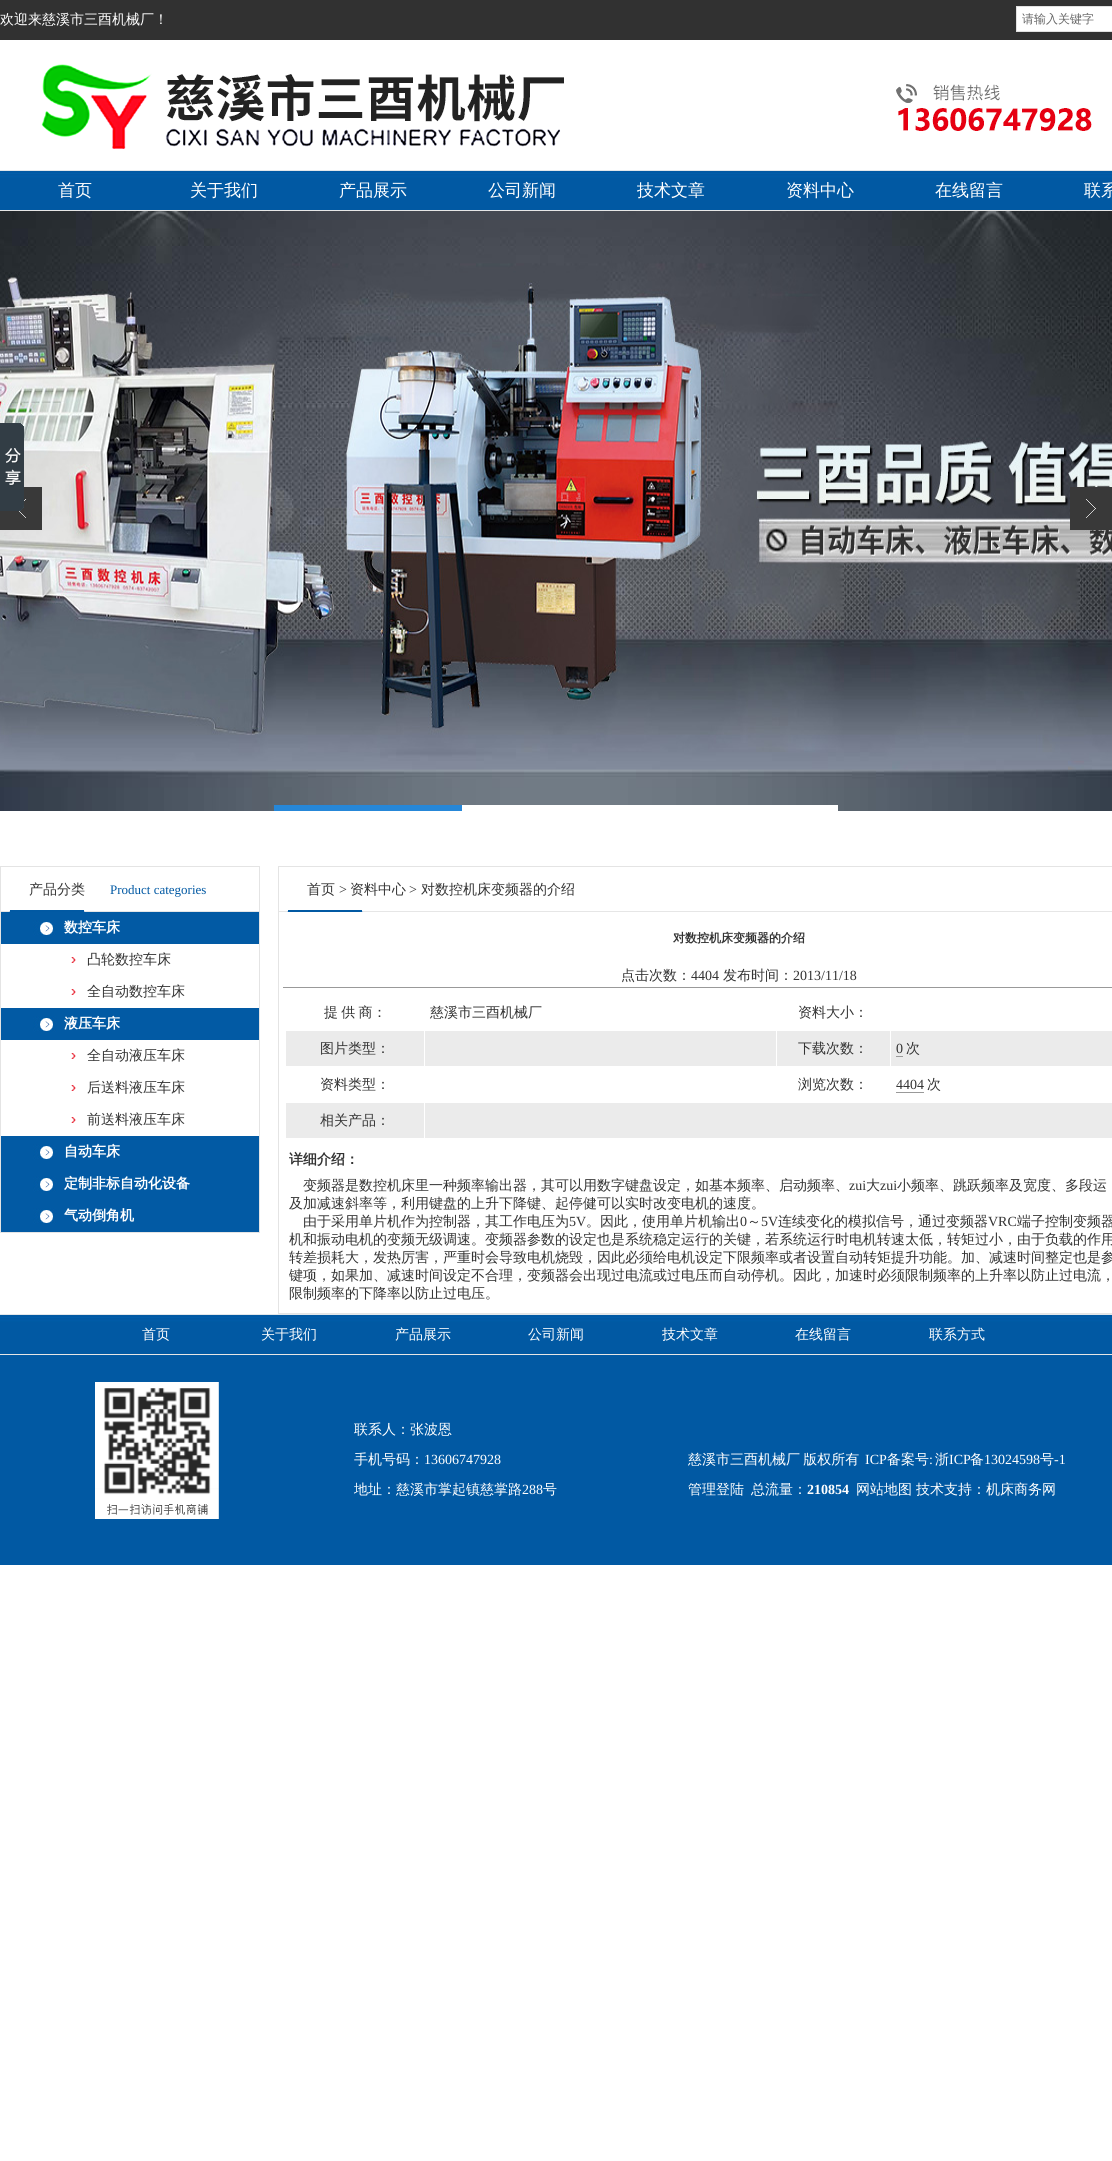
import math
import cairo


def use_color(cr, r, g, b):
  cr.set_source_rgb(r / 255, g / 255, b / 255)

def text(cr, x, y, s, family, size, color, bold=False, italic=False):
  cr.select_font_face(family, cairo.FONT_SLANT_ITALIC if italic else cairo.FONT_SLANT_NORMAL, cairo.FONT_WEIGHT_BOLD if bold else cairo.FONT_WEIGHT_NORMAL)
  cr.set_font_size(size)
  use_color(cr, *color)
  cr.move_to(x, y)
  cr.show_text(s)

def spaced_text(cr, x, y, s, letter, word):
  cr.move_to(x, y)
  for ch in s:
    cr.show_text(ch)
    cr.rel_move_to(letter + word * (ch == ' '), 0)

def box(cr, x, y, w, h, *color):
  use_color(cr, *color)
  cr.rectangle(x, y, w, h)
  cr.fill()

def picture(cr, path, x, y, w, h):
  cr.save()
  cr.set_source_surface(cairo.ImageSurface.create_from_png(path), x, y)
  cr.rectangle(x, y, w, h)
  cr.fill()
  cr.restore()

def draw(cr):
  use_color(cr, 255, 255, 255)
  cr.paint()
  box(cr, 0, 0, 1112, 40, 49, 49, 49)
  box(cr, 1017, 7, 95, 24, 255, 255, 255)
  box(cr, 1016, 6, 96, 1, 225, 225, 225)
  box(cr, 1016, 31, 96, 1, 225, 225, 225)
  box(cr, 1016, 6, 1, 26, 225, 225, 225)
  picture(cr, "img_01.png", 41, 64, 1051, 85)
  picture(cr, "img_02.png", 0, 170, 1112, 41)
  picture(cr, "img_03.png", 0, 211, 1112, 600)
  box(cr, 0, 487, 42, 43, 57, 57, 57)
  picture(cr, "img_04.png", 19, 499, 7, 19)
  box(cr, 1070, 487, 42, 43, 57, 57, 57)
  picture(cr, "img_05.png", 1086, 499, 10, 19)
  box(cr, 274, 805, 188, 6, 38, 135, 216)
  box(cr, 462, 805, 376, 6, 255, 255, 255)
  picture(cr, "img_06.png", 0, 423, 24, 88)
  cr.rectangle(0.5, 866.5, 259, 366)
  use_color(cr, 228, 228, 228)
  cr.set_line_width(1)
  cr.stroke()
  picture(cr, "img_07.png", 1, 910, 258, 2)
  picture(cr, "img_08.png", 1, 912, 258, 32)
  picture(cr, "img_09.png", 71, 957, 5, 6)
  picture(cr, "img_09.png", 71, 989, 5, 6)
  picture(cr, "img_08.png", 1, 1008, 258, 32)
  picture(cr, "img_09.png", 71, 1053, 5, 6)
  picture(cr, "img_09.png", 71, 1085, 5, 6)
  picture(cr, "img_09.png", 71, 1117, 5, 6)
  picture(cr, "img_08.png", 1, 1136, 258, 32)
  picture(cr, "img_08.png", 1, 1168, 258, 32)
  picture(cr, "img_08.png", 1, 1200, 258, 32)
  cr.rectangle(278.5, 866.5, 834, 447)
  cr.stroke()
  picture(cr, "img_10.png", 279, 910, 833, 2)
  box(cr, 283, 987, 829, 1, 153, 153, 153)
  box(cr, 286, 1031, 138, 35, 235, 235, 235)
  box(cr, 425, 1031, 351, 35, 235, 235, 235)
  box(cr, 777, 1031, 113, 35, 235, 235, 235)
  box(cr, 891, 1031, 221, 35, 235, 235, 235)
  box(cr, 896, 1056, 7, 1, 153, 153, 153)
  box(cr, 896, 1092, 28, 1, 153, 153, 153)
  box(cr, 286, 1103, 138, 35, 235, 235, 235)
  box(cr, 425, 1103, 687, 35, 235, 235, 235)
  picture(cr, "img_02.png", 0, 1314, 1112, 41)
  box(cr, 0, 1355, 1112, 210, 1, 89, 163)
  picture(cr, "img_11.png", 95, 1382, 124, 137)
  text(cr, 0, 24, "欢迎来慈溪市三酉机械厂！", "WenQuanYi Zen Hei Medium", 14, (255, 255, 255))
  text(cr, 1022, 23, "请输入关键字", "WenQuanYi Zen Hei Medium", 12, (102, 102, 102))
  text(cr, 58, 196, "首页", "WenQuanYi Zen Hei Medium", 17, (255, 255, 255))
  text(cr, 190, 196, "关于我们", "WenQuanYi Zen Hei Medium", 17, (255, 255, 255))
  text(cr, 339, 196, "产品展示", "WenQuanYi Zen Hei Medium", 17, (255, 255, 255))
  text(cr, 488, 196, "公司新闻", "WenQuanYi Zen Hei Medium", 17, (255, 255, 255))
  text(cr, 637, 196, "技术文章", "WenQuanYi Zen Hei Medium", 17, (255, 255, 255))
  text(cr, 786, 196, "资料中心", "WenQuanYi Zen Hei Medium", 17, (255, 255, 255))
  text(cr, 935, 196, "在线留言", "WenQuanYi Zen Hei Medium", 17, (255, 255, 255))
  text(cr, 1084, 196, "联系", "WenQuanYi Zen Hei Medium", 17, (255, 255, 255))
  text(cr, 29, 894, "产品分类", "WenQuanYi Zen Hei Medium", 14, (51, 51, 51))
  text(cr, 110, 894, "Product categories", "Liberation Serif", 13, (0, 88, 163))
  text(cr, 64, 932, "数控车床", "WenQuanYi Zen Hei", 14, (255, 255, 255), bold=True)
  text(cr, 87, 964, "凸轮数控车床", "WenQuanYi Zen Hei Medium", 14, (51, 51, 51))
  text(cr, 87, 996, "全自动数控车床", "WenQuanYi Zen Hei Medium", 14, (51, 51, 51))
  text(cr, 64, 1028, "液压车床", "WenQuanYi Zen Hei", 14, (255, 255, 255), bold=True)
  text(cr, 87, 1060, "全自动液压车床", "WenQuanYi Zen Hei Medium", 14, (51, 51, 51))
  text(cr, 87, 1092, "后送料液压车床", "WenQuanYi Zen Hei Medium", 14, (51, 51, 51))
  text(cr, 87, 1124, "前送料液压车床", "WenQuanYi Zen Hei Medium", 14, (51, 51, 51))
  text(cr, 64, 1156, "自动车床", "WenQuanYi Zen Hei", 14, (255, 255, 255), bold=True)
  text(cr, 64, 1188, "定制非标自动化设备", "WenQuanYi Zen Hei", 14, (255, 255, 255), bold=True)
  text(cr, 64, 1220, "气动倒角机", "WenQuanYi Zen Hei", 14, (255, 255, 255), bold=True)
  text(cr, 307, 894, "首页", "WenQuanYi Zen Hei Medium", 14, (51, 51, 51))
  text(cr, 339, 894, ">", "Liberation Serif", 14, (51, 51, 51))
  text(cr, 350, 894, "资料中心", "WenQuanYi Zen Hei Medium", 14, (51, 51, 51))
  text(cr, 409, 894, ">", "Liberation Serif", 14, (51, 51, 51))
  text(cr, 421, 894, "对数控机床变频器的介绍", "WenQuanYi Zen Hei Medium", 14, (51, 51, 51))
  text(cr, 673, 942, "对数控机床变频器的介绍", "WenQuanYi Zen Hei", 12, (51, 51, 51), bold=True)
  text(cr, 621, 980, "点击次数：", "WenQuanYi Zen Hei Medium", 14, (51, 51, 51))
  text(cr, 691, 980, "4404", "Liberation Serif", 14, (51, 51, 51))
  text(cr, 723, 980, "发布时间：", "WenQuanYi Zen Hei Medium", 14, (51, 51, 51))
  text(cr, 793, 980, "2013/11/18", "Liberation Serif", 14, (51, 51, 51))
  cr.select_font_face("WenQuanYi Zen Hei Medium")
  spaced_text(cr, 324, 1017, "提 供 商：", 0, -1)
  text(cr, 430, 1017, "慈溪市三酉机械厂", "WenQuanYi Zen Hei Medium", 14, (51, 51, 51))
  text(cr, 798, 1017, "资料大小：", "WenQuanYi Zen Hei Medium", 14, (51, 51, 51))
  text(cr, 320, 1053, "图片类型：", "WenQuanYi Zen Hei Medium", 14, (51, 51, 51))
  text(cr, 798, 1053, "下载次数：", "WenQuanYi Zen Hei Medium", 14, (51, 51, 51))
  text(cr, 896, 1053, "0", "Liberation Serif", 14, (51, 51, 51))
  text(cr, 906, 1053, "次", "WenQuanYi Zen Hei Medium", 14, (51, 51, 51))
  text(cr, 320, 1089, "资料类型：", "WenQuanYi Zen Hei Medium", 14, (51, 51, 51))
  text(cr, 798, 1089, "浏览次数：", "WenQuanYi Zen Hei Medium", 14, (51, 51, 51))
  text(cr, 896, 1089, "4404", "Liberation Serif", 14, (51, 51, 51))
  text(cr, 927, 1089, "次", "WenQuanYi Zen Hei Medium", 14, (51, 51, 51))
  text(cr, 320, 1125, "相关产品：", "WenQuanYi Zen Hei Medium", 14, (51, 51, 51))
  text(cr, 289, 1164, "详细介绍：", "WenQuanYi Zen Hei", 14, (51, 51, 51), bold=True)
  text(cr, 303, 1190, "变频器是数控机床里一种频率输出器，其可以用数字键盘设定，如基本频率、启动频率、", "WenQuanYi Zen Hei Medium", 14, (51, 51, 51))
  text(cr, 849, 1190, "zui", "Liberation Serif", 14, (51, 51, 51))
  text(cr, 866, 1190, "大", "WenQuanYi Zen Hei Medium", 14, (51, 51, 51))
  text(cr, 880, 1190, "zui", "Liberation Serif", 14, (51, 51, 51))
  text(cr, 897, 1190, "小频率、跳跃频率及宽度、多段运", "WenQuanYi Zen Hei Medium", 14, (51, 51, 51))
  text(cr, 289, 1208, "及加减速斜率等，利用键盘的上升下降键、起停健可以实时改变电机的速度。", "WenQuanYi Zen Hei Medium", 14, (51, 51, 51))
  text(cr, 303, 1226, "由于采用单片机作为控制器，其工作电压为", "WenQuanYi Zen Hei Medium", 14, (51, 51, 51))
  text(cr, 569, 1226, "5V", "Liberation Serif", 14, (51, 51, 51))
  text(cr, 586, 1226, "。因此，使用单片机输出", "WenQuanYi Zen Hei Medium", 14, (51, 51, 51))
  text(cr, 740, 1226, "0", "Liberation Serif", 14, (51, 51, 51))
  text(cr, 747, 1226, "～", "WenQuanYi Zen Hei Medium", 14, (51, 51, 51))
  text(cr, 761, 1226, "5V", "Liberation Serif", 14, (51, 51, 51))
  text(cr, 778, 1226, "连续变化的模拟信号，通过变频器", "WenQuanYi Zen Hei Medium", 14, (51, 51, 51))
  text(cr, 988, 1226, "VRC", "Liberation Serif", 14, (51, 51, 51))
  text(cr, 1017, 1226, "端子控制变频器", "WenQuanYi Zen Hei Medium", 14, (51, 51, 51))
  text(cr, 289, 1244, "机和振动电机的变频无级调速。变频器参数的设定也是系统稳定运行的关键，若系统运行时电机转速太低，转矩过小，由于负载的作用", "WenQuanYi Zen Hei Medium", 14, (51, 51, 51))
  text(cr, 289, 1262, "转差损耗大，发热厉害，严重时会导致电机烧毁，因此必须给电机设定下限频率或者设置自动转矩提升功能。加、减速时间整定也是参", "WenQuanYi Zen Hei Medium", 14, (51, 51, 51))
  text(cr, 289, 1280, "键项，如果加、减速时间设定不合理，变频器会出现过电流或过电压而自动停机。因此，加速时必须限制频率的上升率以防止过电流，", "WenQuanYi Zen Hei Medium", 14, (51, 51, 51))
  text(cr, 289, 1298, "限制频率的下降率以防止过电压。", "WenQuanYi Zen Hei Medium", 14, (51, 51, 51))
  text(cr, 142, 1339, "首页", "WenQuanYi Zen Hei Medium", 14, (255, 255, 255))
  text(cr, 261, 1339, "关于我们", "WenQuanYi Zen Hei Medium", 14, (255, 255, 255))
  text(cr, 395, 1339, "产品展示", "WenQuanYi Zen Hei Medium", 14, (255, 255, 255))
  text(cr, 528, 1339, "公司新闻", "WenQuanYi Zen Hei Medium", 14, (255, 255, 255))
  text(cr, 662, 1339, "技术文章", "WenQuanYi Zen Hei Medium", 14, (255, 255, 255))
  text(cr, 795, 1339, "在线留言", "WenQuanYi Zen Hei Medium", 14, (255, 255, 255))
  text(cr, 929, 1339, "联系方式", "WenQuanYi Zen Hei Medium", 14, (255, 255, 255))
  text(cr, 354, 1434, "联系人：张波恩", "WenQuanYi Zen Hei Medium", 14, (255, 255, 255))
  text(cr, 354, 1464, "手机号码：", "WenQuanYi Zen Hei Medium", 14, (255, 255, 255))
  text(cr, 424, 1464, "13606747928", "Liberation Serif", 14, (255, 255, 255))
  text(cr, 354, 1494, "地址：慈溪市掌起镇慈掌路", "WenQuanYi Zen Hei Medium", 14, (255, 255, 255))
  text(cr, 522, 1494, "288", "Liberation Serif", 14, (255, 255, 255))
  text(cr, 543, 1494, "号", "WenQuanYi Zen Hei Medium", 14, (255, 255, 255))
  spaced_text(cr, 688, 1464, "慈溪市三酉机械厂 版权所有", 0, -1)
  text(cr, 865, 1464, "ICP", "Liberation Serif", 14, (255, 255, 255))
  text(cr, 887, 1464, "备案号", "WenQuanYi Zen Hei Medium", 14, (255, 255, 255))
  text(cr, 929, 1464, ":", "Liberation Serif", 14, (255, 255, 255))
  text(cr, 935, 1464, "浙", "WenQuanYi Zen Hei Medium", 14, (255, 255, 255))
  text(cr, 949, 1464, "ICP", "Liberation Serif", 14, (255, 255, 255))
  text(cr, 970, 1464, "备", "WenQuanYi Zen Hei Medium", 14, (255, 255, 255))
  text(cr, 984, 1464, "13024598", "Liberation Serif", 14, (255, 255, 255))
  text(cr, 1040, 1464, "号", "WenQuanYi Zen Hei Medium", 14, (255, 255, 255))
  text(cr, 1054, 1464, "-1", "Liberation Serif", 14, (255, 255, 255))
  text(cr, 688, 1494, "管理登陆", "WenQuanYi Zen Hei Medium", 14, (255, 255, 255))
  text(cr, 751, 1494, "总流量：", "WenQuanYi Zen Hei Medium", 14, (255, 255, 255))
  text(cr, 807, 1494, "210854", "Liberation Serif", 14, (255, 255, 255), bold=True)
  text(cr, 856, 1494, "网站地图", "WenQuanYi Zen Hei Medium", 14, (255, 255, 255))
  text(cr, 916, 1494, "技术支持：机床商务网", "WenQuanYi Zen Hei Medium", 14, (255, 255, 255))


surface = cairo.ImageSurface(cairo.FORMAT_RGB24, 1112, 2161)
cr = cairo.Context(surface)
options = cairo.FontOptions()
options.set_hint_metrics(cairo.HINT_METRICS_OFF)
options.set_hint_style(cairo.HINT_STYLE_NONE)
cr.set_font_options(options)
cr.set_miter_limit(4)
draw(cr)
surface.write_to_png("out.png")
